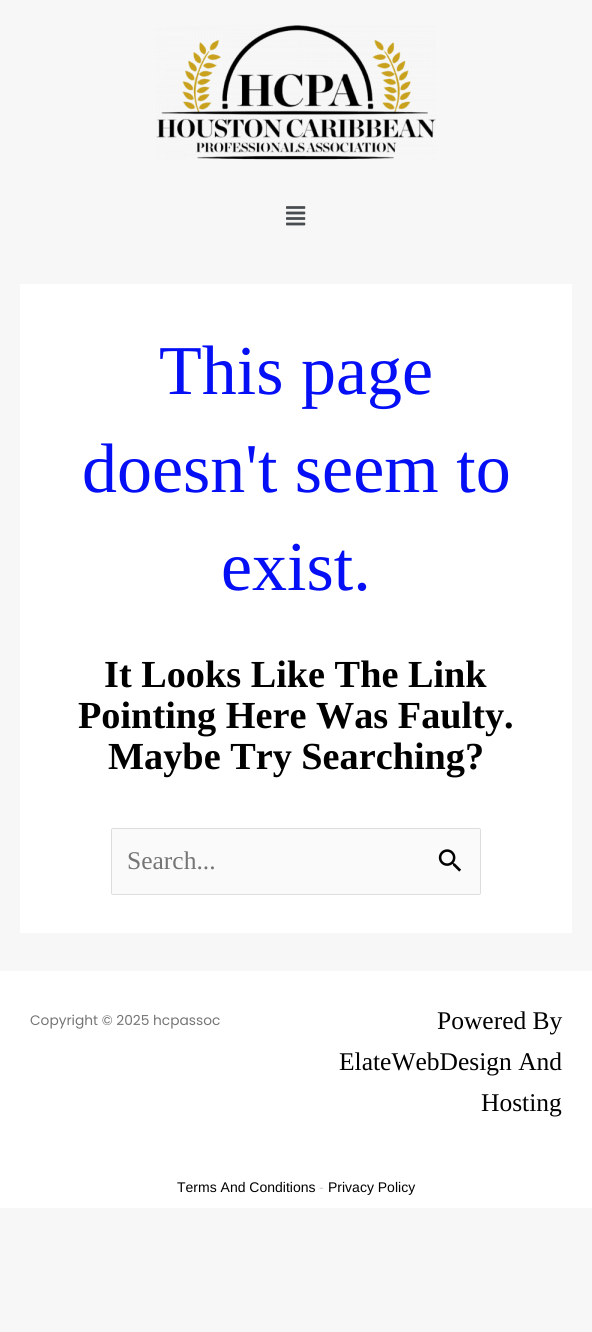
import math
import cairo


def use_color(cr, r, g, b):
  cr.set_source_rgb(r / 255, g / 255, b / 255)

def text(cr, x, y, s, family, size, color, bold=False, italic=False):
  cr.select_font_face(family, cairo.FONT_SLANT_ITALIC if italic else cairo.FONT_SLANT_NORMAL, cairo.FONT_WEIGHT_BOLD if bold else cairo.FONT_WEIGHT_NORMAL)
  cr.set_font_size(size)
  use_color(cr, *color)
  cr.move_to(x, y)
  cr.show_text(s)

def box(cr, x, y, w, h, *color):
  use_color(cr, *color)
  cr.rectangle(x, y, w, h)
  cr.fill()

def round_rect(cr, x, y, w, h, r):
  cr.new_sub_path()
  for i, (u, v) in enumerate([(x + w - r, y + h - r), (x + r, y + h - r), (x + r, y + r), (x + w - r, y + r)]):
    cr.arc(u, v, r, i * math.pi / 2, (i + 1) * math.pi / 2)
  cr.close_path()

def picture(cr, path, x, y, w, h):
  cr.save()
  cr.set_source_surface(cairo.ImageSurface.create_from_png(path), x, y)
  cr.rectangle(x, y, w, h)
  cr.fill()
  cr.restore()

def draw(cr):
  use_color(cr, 247, 247, 247)
  cr.paint()
  picture(cr, "img_01.png", 156, 25, 280, 135)
  picture(cr, "img_02.png", 286, 206, 20, 20)
  box(cr, 20, 284, 552, 649, 255, 255, 255)
  use_color(cr, 250, 250, 250)
  round_rect(cr, 111.5, 828.5, 369, 66, 1.5)
  cr.fill_preserve()
  use_color(cr, 221, 221, 221)
  cr.set_line_width(1)
  cr.stroke()
  picture(cr, "img_03.png", 438, 849, 24, 23)
  box(cr, 0, 971, 592, 237, 255, 255, 255)
  text(cr, 159, 394, "This page", "Liberation Serif", 70, (5, 15, 245))
  text(cr, 82, 492, "doesn't seem to", "Liberation Serif", 70, (5, 15, 245))
  text(cr, 221, 590, "exist.", "Liberation Serif", 70, (5, 15, 245))
  text(cr, 104, 687, "It Looks Like The Link", "Liberation Serif", 38.25, (0, 0, 0), bold=True)
  text(cr, 78, 728, "Pointing Here Was Faulty.", "Liberation Serif", 38.25, (0, 0, 0), bold=True)
  text(cr, 108, 769, "Maybe Try Searching?", "Liberation Serif", 38.25, (0, 0, 0), bold=True)
  text(cr, 127, 869, "Search...", "Liberation Serif", 25.5, (117, 117, 117))
  text(cr, 30, 1025, "Copyright © 2025 hcpassoc", "Poppins", 13.75, (117, 117, 117))
  text(cr, 437, 1029, "Powered By", "Liberation Serif", 25.5, (0, 0, 0))
  text(cr, 339, 1070, "ElateWebDesign And", "Liberation Serif", 25.5, (0, 0, 0))
  text(cr, 481, 1111, "Hosting", "Liberation Serif", 25.5, (0, 0, 0))
  text(cr, 177, 1192, "Terms And Conditions", "Liberation Sans", 14, (0, 0, 0))
  text(cr, 319, 1192, "-", "Liberation Sans", 14, (204, 204, 204))
  text(cr, 328, 1192, "Privacy Policy", "Liberation Sans", 14, (0, 0, 0))


surface = cairo.ImageSurface(cairo.FORMAT_RGB24, 592, 1332)
cr = cairo.Context(surface)
options = cairo.FontOptions()
options.set_hint_metrics(cairo.HINT_METRICS_OFF)
options.set_hint_style(cairo.HINT_STYLE_NONE)
cr.set_font_options(options)
cr.set_miter_limit(4)
draw(cr)
surface.write_to_png("out.png")
